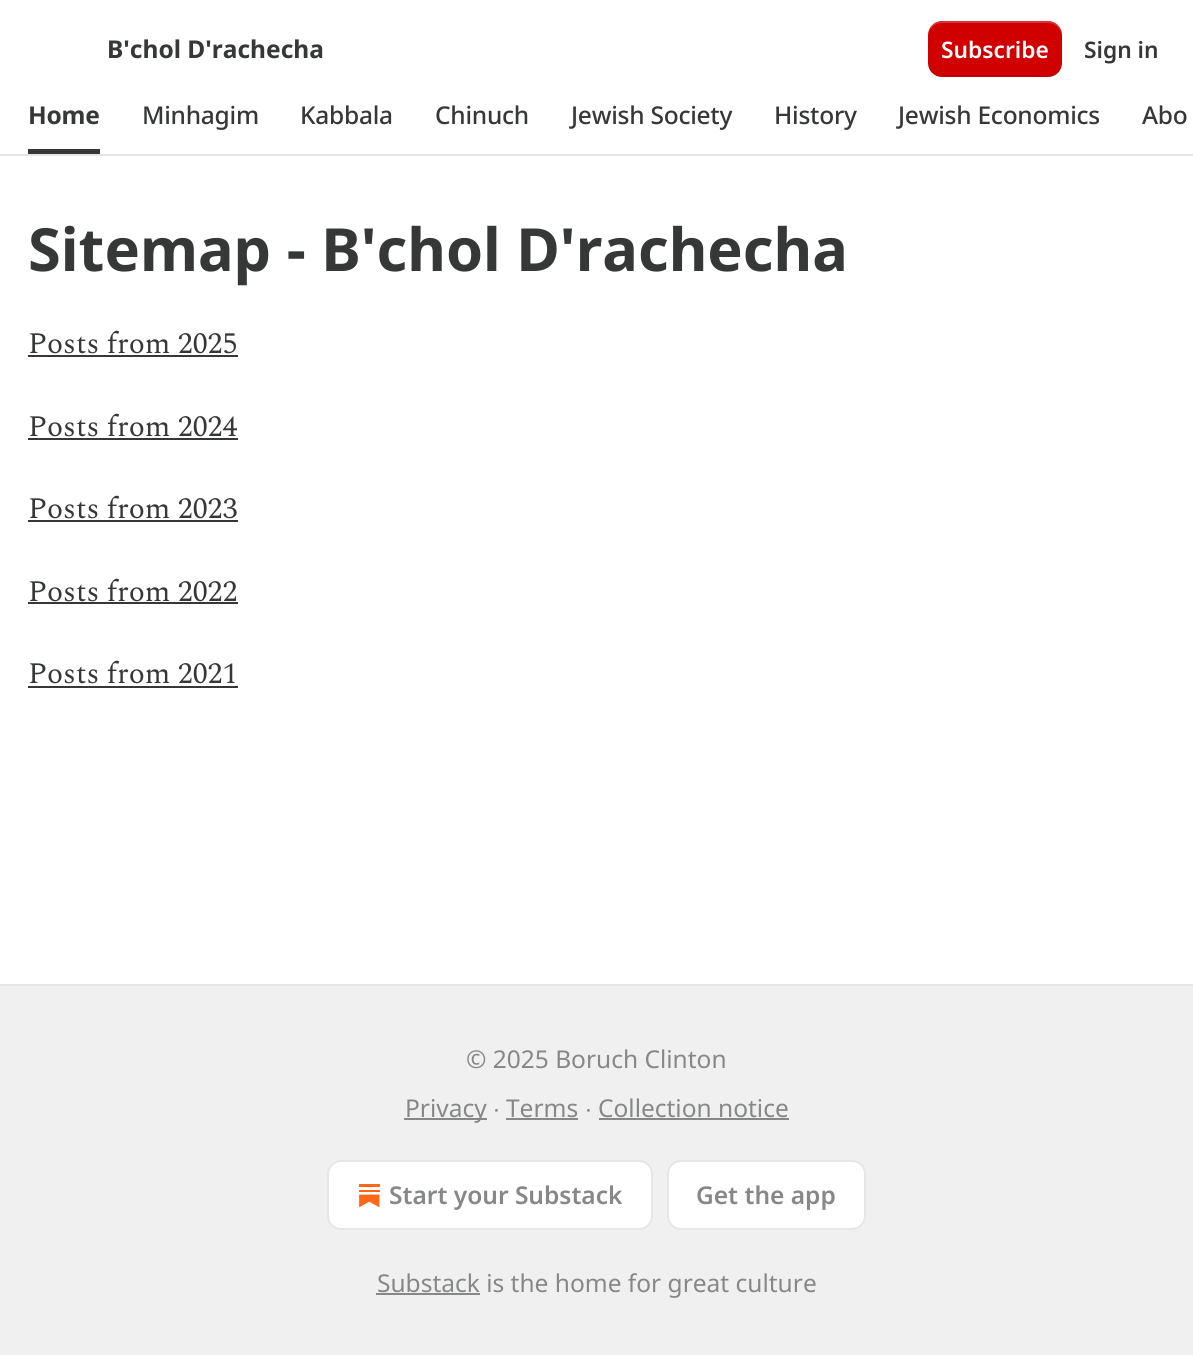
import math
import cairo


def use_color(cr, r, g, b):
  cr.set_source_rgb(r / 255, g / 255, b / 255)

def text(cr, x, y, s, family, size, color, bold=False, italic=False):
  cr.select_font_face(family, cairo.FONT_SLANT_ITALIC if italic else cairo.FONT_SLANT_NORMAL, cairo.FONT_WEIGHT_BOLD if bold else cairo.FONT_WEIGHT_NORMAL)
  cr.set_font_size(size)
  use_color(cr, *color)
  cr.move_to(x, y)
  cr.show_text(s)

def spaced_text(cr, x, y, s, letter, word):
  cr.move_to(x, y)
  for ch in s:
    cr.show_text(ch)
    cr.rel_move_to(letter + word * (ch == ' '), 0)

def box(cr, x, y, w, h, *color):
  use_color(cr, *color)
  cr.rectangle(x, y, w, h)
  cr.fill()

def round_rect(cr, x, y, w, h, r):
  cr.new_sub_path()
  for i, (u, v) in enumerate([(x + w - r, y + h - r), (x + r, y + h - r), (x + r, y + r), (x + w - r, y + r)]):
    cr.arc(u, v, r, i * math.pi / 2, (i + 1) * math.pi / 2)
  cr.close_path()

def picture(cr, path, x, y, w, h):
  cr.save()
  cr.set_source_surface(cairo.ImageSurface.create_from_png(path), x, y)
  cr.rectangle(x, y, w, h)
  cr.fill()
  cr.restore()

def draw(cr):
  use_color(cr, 255, 255, 255)
  cr.paint()
  use_color(cr, 209, 0, 0)
  round_rect(cr, 928, 21, 134, 56, 14)
  cr.fill()
  cr.set_source_rgba(0, 0, 0, 0.1)
  cr.new_path()
  cr.move_to(928, 61)
  cr.curve_to(928, 80, 945, 77, 960, 77)
  cr.line_to(1030, 77)
  cr.curve_to(1045, 77, 1062, 80, 1062, 61)
  cr.curve_to(1062, 69, 1056, 75, 1048, 75)
  cr.line_to(942, 75)
  cr.curve_to(934, 75, 928, 69, 928, 61)
  cr.close_path()
  cr.fill()
  cr.set_source_rgba(1, 1, 1, 0.2)
  cr.new_path()
  cr.move_to(942, 23)
  cr.line_to(1048, 23)
  cr.curve_to(1056, 23, 1062, 29, 1062, 37)
  cr.curve_to(1062, 18, 1045, 21, 1030, 21)
  cr.line_to(960, 21)
  cr.curve_to(945, 21, 928, 18, 928, 37)
  cr.curve_to(928, 29, 934, 23, 942, 23)
  cr.close_path()
  cr.fill()
  box(cr, 0, 154, 1193, 2, 230, 230, 230)
  box(cr, 28, 149, 72, 5, 54, 55, 55)
  box(cr, 947, 77, 96, 1, 255, 255, 255)
  box(cr, 28, 355, 210, 2, 54, 55, 55)
  box(cr, 28, 438, 210, 2, 54, 55, 55)
  box(cr, 28, 520, 210, 2, 54, 55, 55)
  box(cr, 28, 602, 210, 2, 54, 55, 55)
  box(cr, 28, 686, 210, 2, 54, 55, 55)
  box(cr, 0, 986, 1193, 369, 240, 240, 240)
  box(cr, 0, 984, 1193, 2, 230, 230, 230)
  box(cr, 404, 1118, 83, 2, 134, 135, 135)
  box(cr, 506, 1118, 72, 2, 134, 135, 135)
  box(cr, 599, 1118, 190, 2, 134, 135, 135)
  use_color(cr, 255, 255, 255)
  round_rect(cr, 328, 1161, 324, 68, 13)
  cr.fill_preserve()
  use_color(cr, 230, 230, 230)
  cr.stroke()
  picture(cr, "img_01.png", 359, 1184, 21, 24)
  use_color(cr, 255, 255, 255)
  round_rect(cr, 668, 1161, 197, 68, 13)
  cr.fill_preserve()
  use_color(cr, 230, 230, 230)
  cr.stroke()
  box(cr, 376, 1293, 104, 2, 134, 135, 135)
  text(cr, 107, 58, "B'chol D'rachecha", "Noto Sans", 24.5, (54, 55, 55), bold=True)
  text(cr, 941, 58, "Subscribe", "Noto Sans SemiBold", 22.75, (255, 255, 255))
  text(cr, 1084, 58, "Sign in", "Noto Sans SemiBold", 22.75, (54, 55, 55))
  cr.select_font_face("Noto Sans", cairo.FONT_SLANT_NORMAL, cairo.FONT_WEIGHT_BOLD)
  cr.set_font_size(24.5)
  spaced_text(cr, 28, 124, "Home", -0.25, 0)
  cr.select_font_face("Noto Sans Medium")
  spaced_text(cr, 142, 124, "Minhagim", -0.25, 0)
  spaced_text(cr, 300, 124, "Kabbala", -0.25, 0)
  spaced_text(cr, 435, 124, "Chinuch", -0.25, 0)
  spaced_text(cr, 571, 124, "Jewish Society", -0.25, 0)
  spaced_text(cr, 774, 124, "History", -0.25, 0)
  spaced_text(cr, 898, 124, "Jewish Economics", -0.25, 0)
  spaced_text(cr, 1142, 124, "Abo", -0.25, 0)
  text(cr, 28, 271, "Sitemap - B'chol D'rachecha", "Noto Sans", 59.5, (54, 55, 55), bold=True)
  text(cr, 28, 353, "Posts from 2025", "Spectral", 29.75, (54, 55, 55))
  text(cr, 28, 436, "Posts from 2024", "Spectral", 29.75, (54, 55, 55))
  text(cr, 28, 518, "Posts from 2023", "Spectral", 29.75, (54, 55, 55))
  text(cr, 28, 601, "Posts from 2022", "Spectral", 29.75, (54, 55, 55))
  text(cr, 28, 683, "Posts from 2021", "Spectral", 29.75, (54, 55, 55))
  text(cr, 466, 1068, "© 2025 Boruch Clinton", "Noto Sans", 24.5, (134, 135, 135))
  text(cr, 405, 1117, "Privacy", "Noto Sans", 24.5, (134, 135, 135))
  text(cr, 493, 1117, "∙", "Liberation Sans", 24.5, (134, 135, 135))
  text(cr, 506, 1117, "Terms", "Noto Sans", 24.5, (134, 135, 135))
  text(cr, 585, 1117, "∙", "Liberation Sans", 24.5, (134, 135, 135))
  text(cr, 598, 1117, "Collection notice", "Noto Sans", 24.5, (134, 135, 135))
  text(cr, 389, 1204, "Start your Substack", "Noto Sans SemiBold", 24.5, (134, 135, 135))
  text(cr, 696, 1204, "Get the app", "Noto Sans SemiBold", 24.5, (134, 135, 135))
  text(cr, 377, 1292, "Substack is the home for great culture", "Noto Sans", 24.5, (134, 135, 135))


surface = cairo.ImageSurface(cairo.FORMAT_RGB24, 1193, 1355)
cr = cairo.Context(surface)
options = cairo.FontOptions()
options.set_hint_metrics(cairo.HINT_METRICS_OFF)
options.set_hint_style(cairo.HINT_STYLE_NONE)
cr.set_font_options(options)
cr.set_miter_limit(4)
draw(cr)
surface.write_to_png("out.png")
